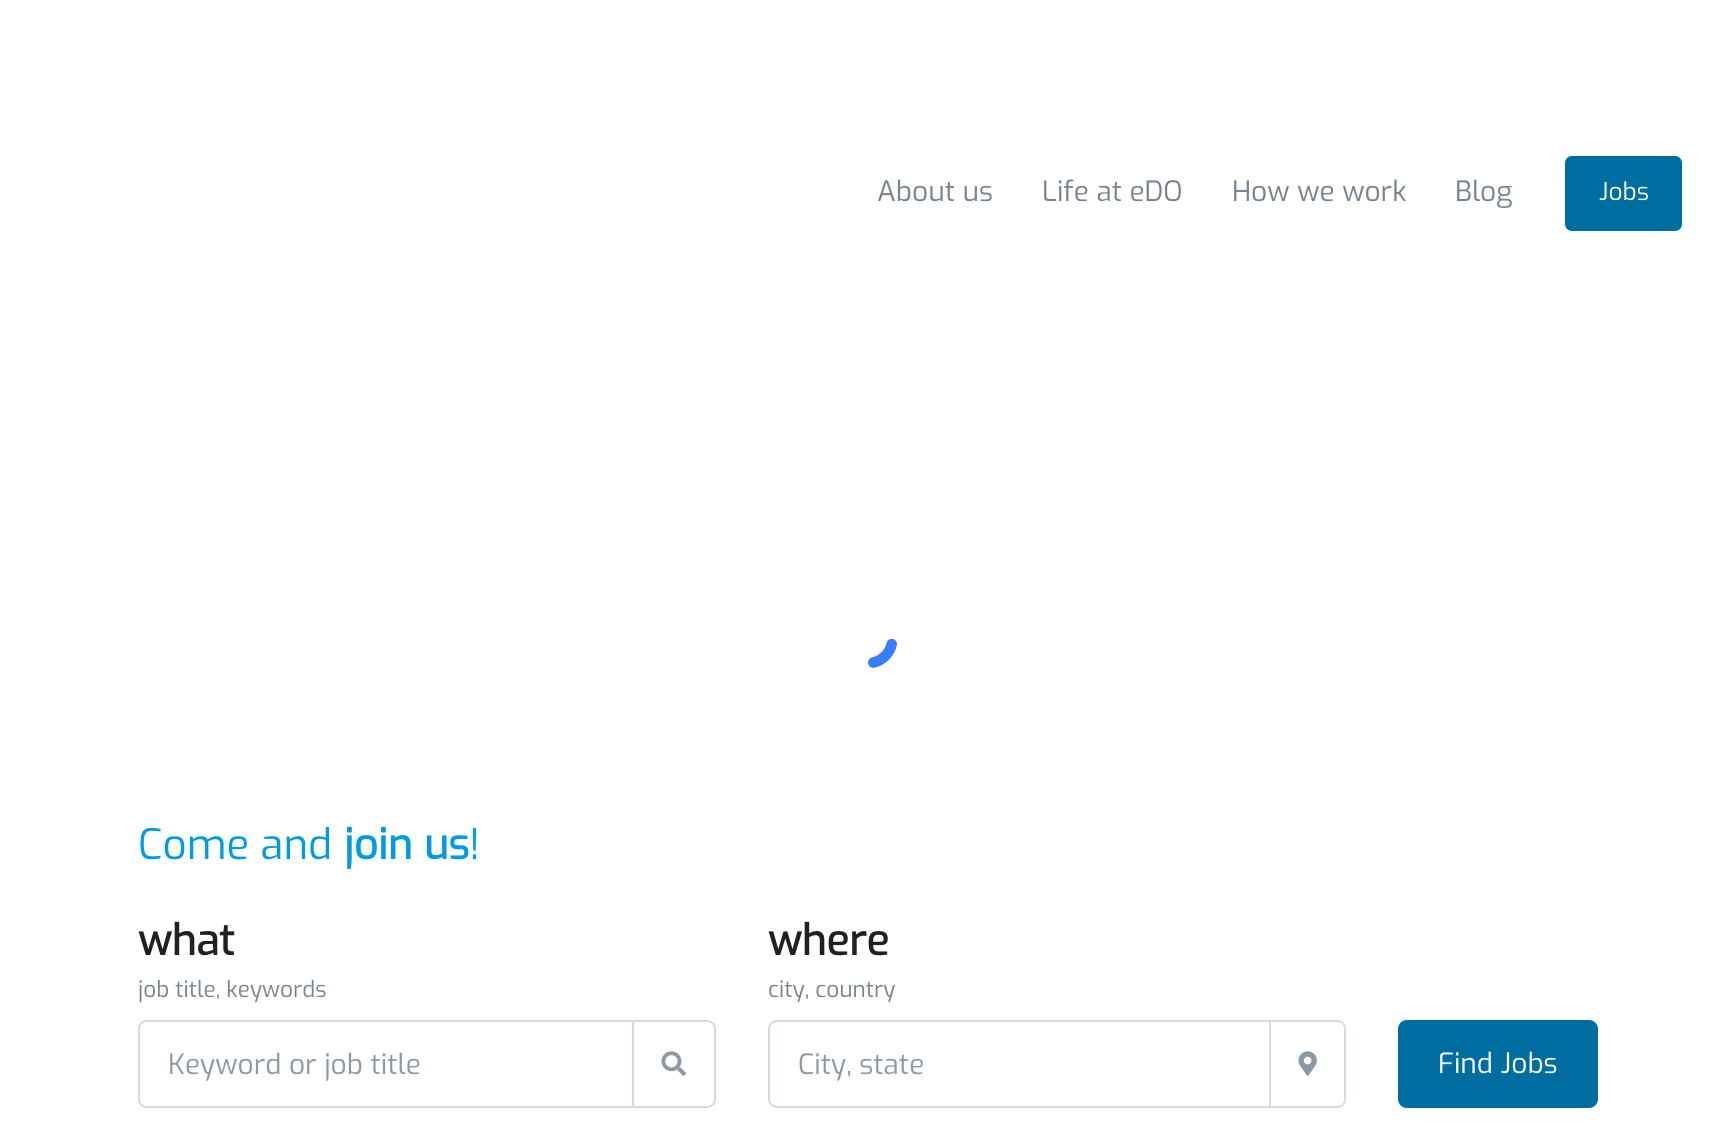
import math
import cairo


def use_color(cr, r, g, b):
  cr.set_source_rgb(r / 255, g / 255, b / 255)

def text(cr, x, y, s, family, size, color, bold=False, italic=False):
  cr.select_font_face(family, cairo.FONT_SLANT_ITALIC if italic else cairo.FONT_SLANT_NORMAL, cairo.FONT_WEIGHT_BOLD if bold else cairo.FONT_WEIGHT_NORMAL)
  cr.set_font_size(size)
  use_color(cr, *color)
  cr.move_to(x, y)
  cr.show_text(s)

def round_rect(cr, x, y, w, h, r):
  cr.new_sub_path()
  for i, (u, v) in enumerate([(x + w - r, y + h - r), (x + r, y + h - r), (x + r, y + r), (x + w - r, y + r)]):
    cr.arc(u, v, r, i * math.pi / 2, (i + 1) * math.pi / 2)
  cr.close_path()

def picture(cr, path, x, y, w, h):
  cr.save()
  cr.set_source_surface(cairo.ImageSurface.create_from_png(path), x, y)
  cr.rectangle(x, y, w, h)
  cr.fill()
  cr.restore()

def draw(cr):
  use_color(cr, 255, 255, 255)
  cr.paint()
  use_color(cr, 0, 109, 160)
  round_rect(cr, 1566, 157, 115, 73, 6)
  cr.fill_preserve()
  cr.stroke()
  picture(cr, "img_01.png", 868, 638, 29, 30)
  cr.new_path()
  cr.move_to(633, 1021)
  cr.line_to(707, 1021)
  cr.curve_to(711.5, 1021, 715, 1024.5, 715, 1029)
  cr.line_to(715, 1099)
  cr.curve_to(715, 1103.5, 711.5, 1107, 707, 1107)
  cr.line_to(633, 1107)
  cr.close_path()
  use_color(cr, 213, 218, 226)
  cr.stroke()
  cr.new_path()
  cr.move_to(147, 1021)
  cr.line_to(633, 1021)
  cr.line_to(633, 1107)
  cr.line_to(147, 1107)
  cr.curve_to(142.5, 1107, 139, 1103.5, 139, 1099)
  cr.line_to(139, 1029)
  cr.curve_to(139, 1024.5, 142.5, 1021, 147, 1021)
  cr.close_path()
  cr.stroke()
  picture(cr, "img_02.png", 661, 1051, 25, 25)
  cr.new_path()
  cr.move_to(1270, 1021)
  cr.line_to(1337, 1021)
  cr.curve_to(1341.5, 1021, 1345, 1024.5, 1345, 1029)
  cr.line_to(1345, 1099)
  cr.curve_to(1345, 1103.5, 1341.5, 1107, 1337, 1107)
  cr.line_to(1270, 1107)
  cr.close_path()
  cr.stroke()
  cr.new_path()
  cr.move_to(777, 1021)
  cr.line_to(1270, 1021)
  cr.line_to(1270, 1107)
  cr.line_to(777, 1107)
  cr.curve_to(772.5, 1107, 769, 1103.5, 769, 1099)
  cr.line_to(769, 1029)
  cr.curve_to(769, 1024.5, 772.5, 1021, 777, 1021)
  cr.close_path()
  cr.stroke()
  picture(cr, "img_03.png", 1298, 1051, 19, 25)
  use_color(cr, 0, 109, 160)
  round_rect(cr, 1399, 1021, 198, 86, 8)
  cr.fill_preserve()
  cr.stroke()
  text(cr, 877, 201, "About us", "Exo", 28, (119, 131, 143))
  text(cr, 1042, 201, "Life at eDO", "Exo", 28, (119, 131, 143))
  text(cr, 1232, 201, "How we work", "Exo", 28, (119, 131, 143))
  text(cr, 1455, 201, "Blog", "Exo", 28, (119, 131, 143))
  text(cr, 1599, 200, "Jobs", "Exo", 24.5, (255, 255, 255))
  text(cr, 138, 859, "Come and", "Exo", 42, (2, 154, 228))
  text(cr, 344, 859, "join us", "Exo", 42, (2, 154, 228), bold=True)
  text(cr, 469, 859, "!", "Exo", 42, (2, 154, 228))
  text(cr, 138, 955, "what", "Exo", 42, (30, 32, 34), bold=True)
  text(cr, 138, 997, "job title, keywords", "Exo", 22.5, (119, 131, 143))
  text(cr, 168, 1074, "Keyword or job title", "Exo", 28, (140, 152, 164))
  text(cr, 768, 955, "where", "Exo", 42, (30, 32, 34), bold=True)
  text(cr, 768, 997, "city, country", "Exo", 22.5, (119, 131, 143))
  text(cr, 798, 1074, "City, state", "Exo", 28, (140, 152, 164))
  text(cr, 1438, 1073, "Find Jobs", "Exo", 28, (255, 255, 255))


surface = cairo.ImageSurface(cairo.FORMAT_RGB24, 1736, 1131)
cr = cairo.Context(surface)
options = cairo.FontOptions()
options.set_hint_metrics(cairo.HINT_METRICS_OFF)
options.set_hint_style(cairo.HINT_STYLE_NONE)
cr.set_font_options(options)
cr.set_miter_limit(4)
draw(cr)
surface.write_to_png("out.png")
